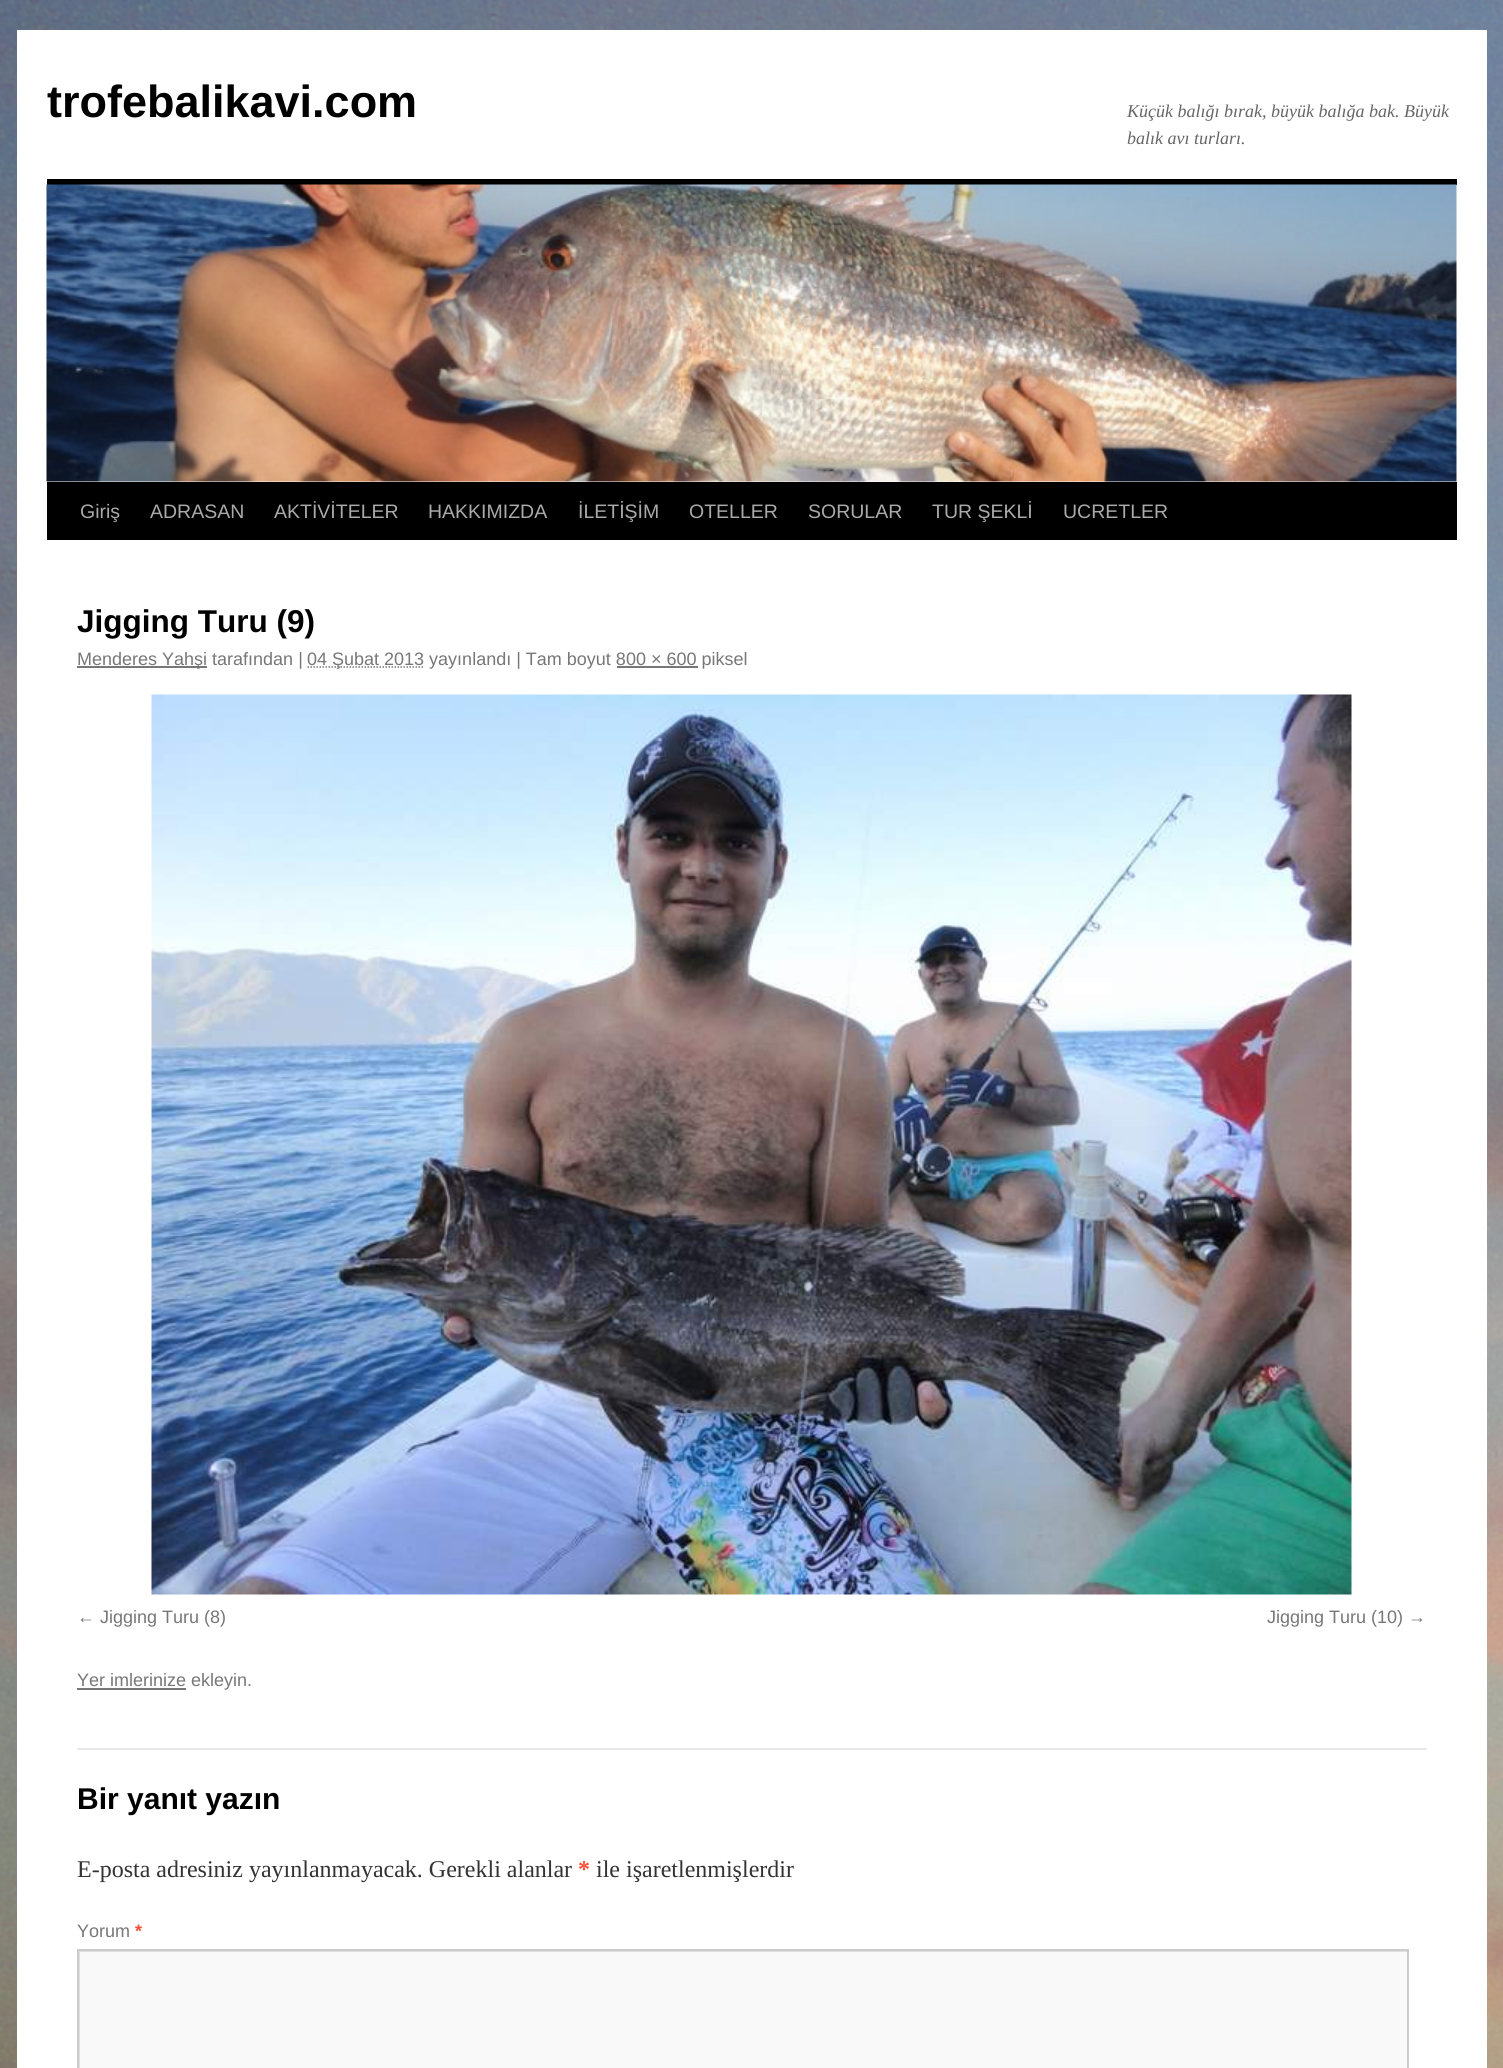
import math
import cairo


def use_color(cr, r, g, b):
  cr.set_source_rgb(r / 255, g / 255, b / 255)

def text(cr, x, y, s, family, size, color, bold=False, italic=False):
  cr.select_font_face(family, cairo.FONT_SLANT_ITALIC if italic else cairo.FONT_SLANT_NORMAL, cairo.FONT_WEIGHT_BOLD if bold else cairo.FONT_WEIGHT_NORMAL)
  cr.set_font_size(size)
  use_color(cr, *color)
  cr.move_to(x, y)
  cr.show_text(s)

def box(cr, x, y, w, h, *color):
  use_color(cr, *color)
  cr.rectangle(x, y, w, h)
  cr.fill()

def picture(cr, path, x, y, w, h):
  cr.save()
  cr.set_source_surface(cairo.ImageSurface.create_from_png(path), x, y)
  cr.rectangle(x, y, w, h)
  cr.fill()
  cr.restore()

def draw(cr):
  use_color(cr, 255, 255, 255)
  cr.paint()
  picture(cr, "img_01.png", 0, 0, 1503, 2068)
  box(cr, 17, 30, 1470, 2038, 255, 255, 255)
  box(cr, 47, 179, 1410, 6, 0, 0, 0)
  box(cr, 47, 482, 1410, 58, 0, 0, 0)
  picture(cr, "img_02.png", 46, 184, 1411, 298)
  box(cr, 77, 666, 130, 2, 119, 119, 119)
  cr.new_path()
  cr.move_to(307.5, 667)
  cr.line_to(424.5, 667)
  cr.set_line_width(1.5)
  cr.set_dash([1.5, 1.5])
  cr.stroke()
  box(cr, 617, 666, 81, 2, 119, 119, 119)
  picture(cr, "img_03.png", 151, 694, 1201, 901)
  box(cr, 77, 1688, 109, 2, 119, 119, 119)
  box(cr, 77, 1748, 1350, 2, 231, 231, 231)
  box(cr, 80, 1952, 1327, 116, 249, 249, 249)
  cr.save()
  cr.rectangle(78, 1950, 1329, 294)
  cr.clip()
  use_color(cr, 224, 224, 224)
  cr.set_fill_rule(cairo.FILL_RULE_EVEN_ODD)
  cr.new_path()
  cr.move_to(-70, 1802)
  cr.line_to(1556, 1802)
  cr.line_to(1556, 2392)
  cr.line_to(-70, 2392)
  cr.close_path()
  cr.move_to(80, 1952)
  cr.line_to(1408, 1952)
  cr.line_to(1408, 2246)
  cr.line_to(80, 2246)
  cr.close_path()
  cr.fill()
  cr.restore()
  cr.rectangle(78, 1950, 1330, 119)
  use_color(cr, 204, 204, 204)
  cr.set_line_width(2)
  cr.set_dash([])
  cr.stroke()
  text(cr, 47, 117, "trofebalikavi.com", "Liberation Sans", 45, (0, 0, 0), bold=True)
  text(cr, 1127, 117, "Küçük balığı bırak, büyük balığa bak. Büyük", "Liberation Serif", 18, (102, 102, 102), italic=True)
  text(cr, 1127, 144, "balık avı turları.", "Liberation Serif", 18, (102, 102, 102), italic=True)
  text(cr, 80, 518, "Giriş", "Liberation Sans", 19.5, (170, 170, 170))
  text(cr, 150, 518, "ADRASAN", "Liberation Sans", 19.5, (170, 170, 170))
  text(cr, 274, 518, "AKTİVİTELER", "Liberation Sans", 19.5, (170, 170, 170))
  text(cr, 428, 518, "HAKKIMIZDA", "Liberation Sans", 19.5, (170, 170, 170))
  text(cr, 578, 518, "İLETİŞİM", "Liberation Sans", 19.5, (170, 170, 170))
  text(cr, 689, 518, "OTELLER", "Liberation Sans", 19.5, (170, 170, 170))
  text(cr, 808, 518, "SORULAR", "Liberation Sans", 19.5, (170, 170, 170))
  text(cr, 932, 518, "TUR ŞEKLİ", "Liberation Sans", 19.5, (170, 170, 170))
  text(cr, 1063, 518, "UCRETLER", "Liberation Sans", 19.5, (170, 170, 170))
  text(cr, 77, 632, "Jigging Turu (9)", "Liberation Sans", 31.5, (0, 0, 0), bold=True)
  text(cr, 77, 665, "Menderes Yahşi tarafından |", "Liberation Sans", 18, (119, 119, 119))
  text(cr, 307, 665, "04 Şubat 2013 yayınlandı | Tam boyut 800 × 600 piksel", "Liberation Sans", 18, (119, 119, 119))
  text(cr, 77, 1623, "← Jigging Turu (8)", "Liberation Sans", 18, (119, 119, 119))
  text(cr, 1267, 1623, "Jigging Turu (10) →", "Liberation Sans", 18, (119, 119, 119))
  text(cr, 77, 1686, "Yer imlerinize ekleyin.", "Liberation Sans", 18, (119, 119, 119))
  text(cr, 77, 1809, "Bir yanıt yazın", "Liberation Sans", 30, (0, 0, 0), bold=True)
  text(cr, 77, 1877, "E-posta adresiniz yayınlanmayacak. Gerekli alanlar", "Liberation Serif", 24, (51, 51, 51))
  text(cr, 578, 1877, "*", "Liberation Serif", 24, (255, 75, 51), bold=True)
  text(cr, 596, 1877, "ile işaretlenmişlerdir", "Liberation Serif", 24, (51, 51, 51))
  text(cr, 77, 1937, "Yorum", "Liberation Sans", 18, (119, 119, 119))
  text(cr, 135, 1937, "*", "Liberation Sans", 18, (255, 75, 51), bold=True)


surface = cairo.ImageSurface(cairo.FORMAT_RGB24, 1503, 2068)
cr = cairo.Context(surface)
options = cairo.FontOptions()
options.set_hint_metrics(cairo.HINT_METRICS_OFF)
options.set_hint_style(cairo.HINT_STYLE_NONE)
cr.set_font_options(options)
cr.set_miter_limit(4)
draw(cr)
surface.write_to_png("out.png")
